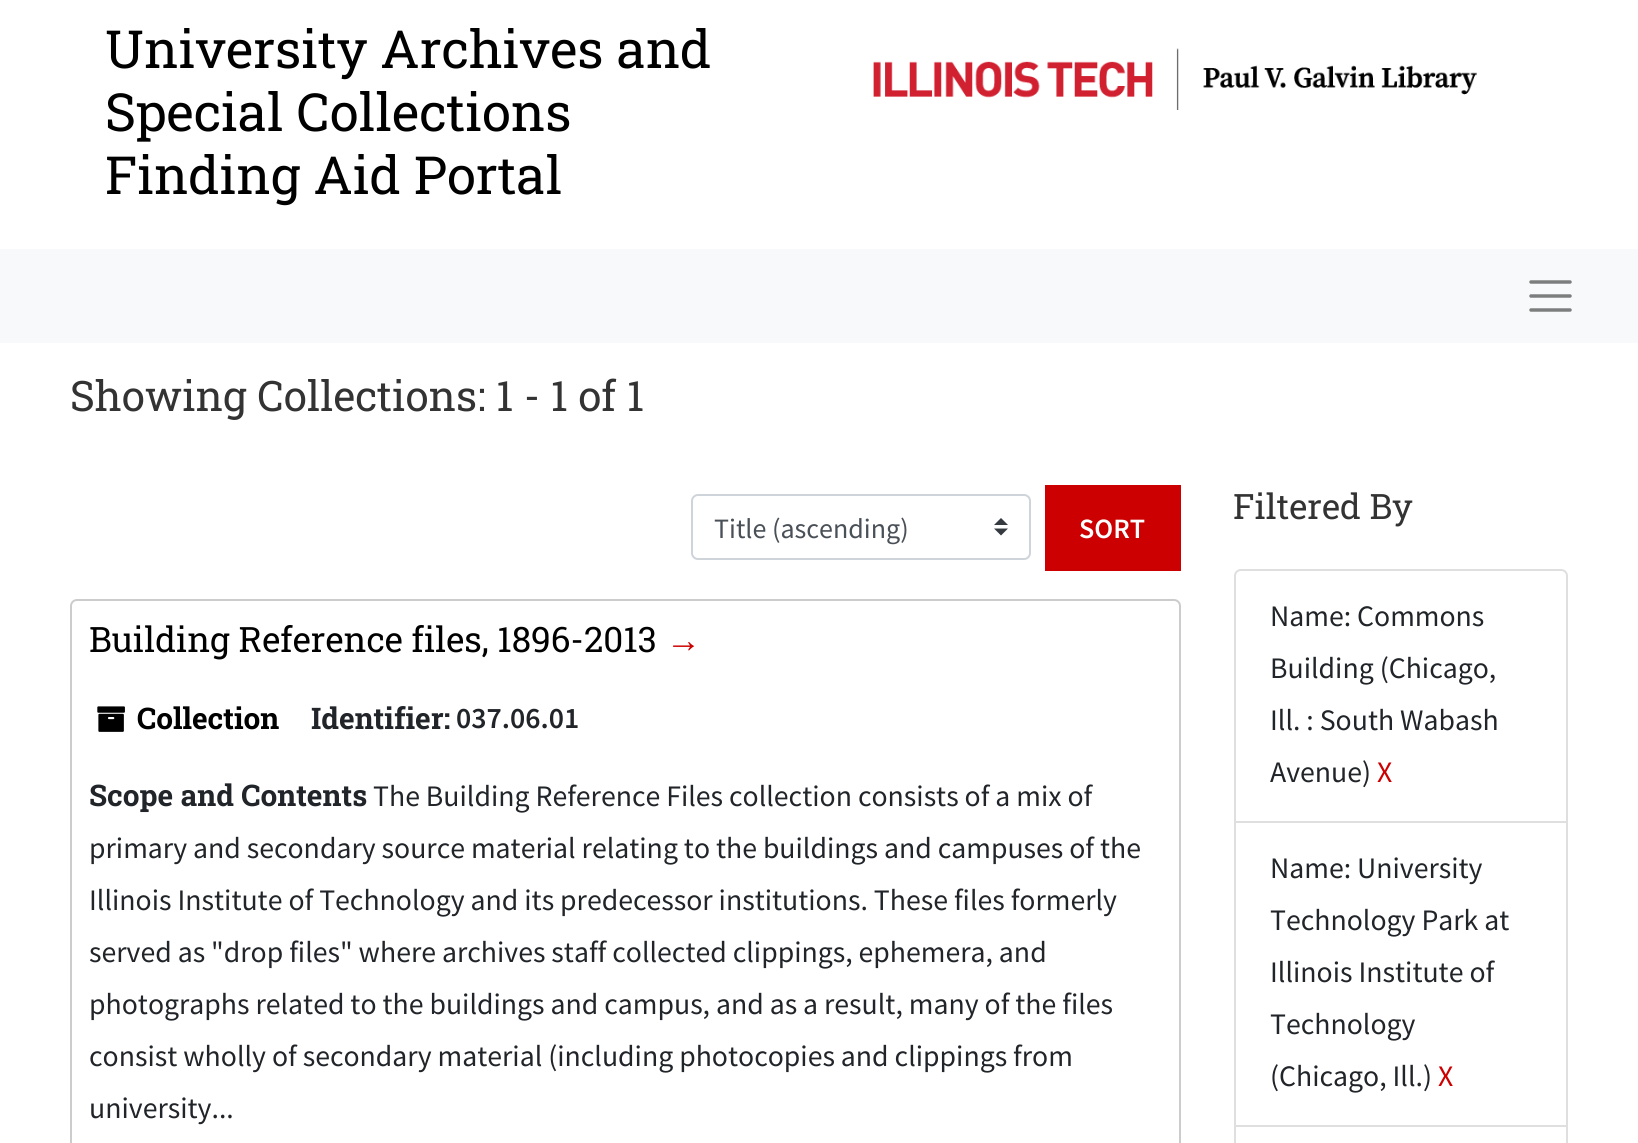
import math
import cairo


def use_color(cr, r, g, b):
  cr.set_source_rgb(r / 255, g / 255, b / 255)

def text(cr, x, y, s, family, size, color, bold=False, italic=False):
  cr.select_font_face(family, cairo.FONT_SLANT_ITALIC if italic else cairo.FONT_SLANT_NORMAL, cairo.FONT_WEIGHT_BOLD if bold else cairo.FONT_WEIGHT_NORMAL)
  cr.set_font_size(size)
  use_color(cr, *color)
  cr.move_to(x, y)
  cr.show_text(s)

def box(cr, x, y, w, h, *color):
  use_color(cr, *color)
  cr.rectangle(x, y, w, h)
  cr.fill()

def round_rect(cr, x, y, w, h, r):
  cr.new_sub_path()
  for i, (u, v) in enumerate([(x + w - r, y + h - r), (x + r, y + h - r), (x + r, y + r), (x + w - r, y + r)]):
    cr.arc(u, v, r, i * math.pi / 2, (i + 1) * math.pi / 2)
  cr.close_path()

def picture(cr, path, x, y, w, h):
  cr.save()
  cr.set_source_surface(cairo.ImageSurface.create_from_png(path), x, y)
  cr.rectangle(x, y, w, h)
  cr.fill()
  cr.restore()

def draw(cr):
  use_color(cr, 255, 255, 255)
  cr.paint()
  picture(cr, "img_01.png", 873, 48, 604, 62)
  box(cr, 0, 249, 1638, 94, 248, 249, 250)
  cr.new_path()
  cr.move_to(1531, 282)
  cr.line_to(1570, 282)
  cr.move_to(1531, 296)
  cr.line_to(1570, 296)
  cr.move_to(1531, 310)
  cr.line_to(1570, 310)
  use_color(cr, 124, 125, 125)
  cr.set_line_width(3.5)
  cr.set_line_cap(cairo.LINE_CAP_ROUND)
  cr.stroke()
  use_color(cr, 52, 58, 64)
  cr.new_path()
  cr.move_to(1001, 518)
  cr.line_to(994, 525)
  cr.line_to(1008, 525)
  cr.close_path()
  cr.move_to(1001, 535.5)
  cr.line_to(994, 528.5)
  cr.line_to(1008, 528.5)
  cr.close_path()
  cr.fill()
  round_rect(cr, 692, 495, 338, 64, 6)
  use_color(cr, 206, 212, 218)
  cr.set_line_width(2)
  cr.set_line_cap(cairo.LINE_CAP_BUTT)
  cr.stroke()
  box(cr, 1045, 485, 136, 86, 204, 0, 0)
  round_rect(cr, 71, 600, 1109, 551, 6)
  use_color(cr, 204, 204, 204)
  cr.stroke()
  picture(cr, "img_02.png", 97, 706, 28, 26)
  cr.new_path()
  cr.move_to(1241, 570)
  cr.line_to(1561, 570)
  cr.curve_to(1564.5, 570, 1567, 572.5, 1567, 576)
  cr.line_to(1567, 822)
  cr.line_to(1235, 822)
  cr.line_to(1235, 576)
  cr.curve_to(1235, 572.5, 1237.5, 570, 1241, 570)
  cr.close_path()
  use_color(cr, 223, 223, 223)
  cr.stroke()
  cr.rectangle(1235, 822, 332, 304)
  cr.stroke()
  cr.rectangle(1235, 1126, 332, 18)
  cr.stroke()
  text(cr, 105, 68, "University Archives and", "Roboto Slab", 52.5, (0, 0, 0))
  text(cr, 105, 131, "Special Collections", "Roboto Slab", 52.5, (0, 0, 0))
  text(cr, 105, 194, "Finding Aid Portal", "Roboto Slab", 52.5, (0, 0, 0))
  text(cr, 70, 411, "Showing Collections: 1 - 1 of 1", "Roboto Slab", 42, (51, 51, 51))
  text(cr, 714, 538, "Title (ascending)", "Source Sans Pro", 28, (73, 80, 87))
  text(cr, 1079, 538, "SORT", "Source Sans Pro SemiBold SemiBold", 28, (255, 255, 255))
  text(cr, 89, 652, "Building Reference files, 1896-2013", "Roboto Slab", 35, (0, 0, 0))
  text(cr, 666, 652, "→", "Liberation Sans", 35, (204, 0, 0))
  text(cr, 137, 729, "Collection", "Roboto Slab", 29.75, (0, 0, 0), bold=True)
  text(cr, 311, 729, "Identifier:", "Roboto Slab", 29.75, (33, 37, 41), bold=True)
  text(cr, 456, 728, "037.06.01", "Source Sans Pro SemiBold SemiBold", 29.75, (33, 37, 41))
  text(cr, 89, 806, "Scope and Contents", "Roboto Slab", 29.75, (33, 37, 41), bold=True)
  text(cr, 373, 806, "The Building Reference Files collection consists of a mix of", "Source Sans Pro", 29.75, (33, 37, 41))
  text(cr, 89, 858, "primary and secondary source material relating to the buildings and campuses of the", "Source Sans Pro", 29.75, (33, 37, 41))
  text(cr, 89, 910, "Illinois Institute of Technology and its predecessor institutions. These files formerly", "Source Sans Pro", 29.75, (33, 37, 41))
  text(cr, 89, 962, "served as \"drop files\" where archives staff collected clippings, ephemera, and", "Source Sans Pro", 29.75, (33, 37, 41))
  text(cr, 89, 1014, "photographs related to the buildings and campus, and as a result, many of the files", "Source Sans Pro", 29.75, (33, 37, 41))
  text(cr, 89, 1066, "consist wholly of secondary material (including photocopies and clippings from", "Source Sans Pro", 29.75, (33, 37, 41))
  text(cr, 89, 1118, "university...", "Source Sans Pro", 29.75, (33, 37, 41))
  text(cr, 1233, 519, "Filtered By", "Roboto Slab", 35, (51, 51, 51))
  text(cr, 1270, 626, "Name: Commons", "Source Sans Pro", 29.75, (33, 37, 41))
  text(cr, 1270, 678, "Building (Chicago,", "Source Sans Pro", 29.75, (33, 37, 41))
  text(cr, 1270, 730, "Ill. : South Wabash", "Source Sans Pro", 29.75, (33, 37, 41))
  text(cr, 1270, 782, "Avenue)", "Source Sans Pro", 29.75, (33, 37, 41))
  text(cr, 1377, 782, "X", "Source Sans Pro", 29.75, (204, 0, 0))
  text(cr, 1270, 878, "Name: University", "Source Sans Pro", 29.75, (33, 37, 41))
  text(cr, 1270, 930, "Technology Park at", "Source Sans Pro", 29.75, (33, 37, 41))
  text(cr, 1270, 982, "Illinois Institute of", "Source Sans Pro", 29.75, (33, 37, 41))
  text(cr, 1270, 1034, "Technology", "Source Sans Pro", 29.75, (33, 37, 41))
  text(cr, 1270, 1086, "(Chicago, Ill.)", "Source Sans Pro", 29.75, (33, 37, 41))
  text(cr, 1438, 1086, "X", "Source Sans Pro", 29.75, (204, 0, 0))


surface = cairo.ImageSurface(cairo.FORMAT_RGB24, 1638, 1143)
cr = cairo.Context(surface)
options = cairo.FontOptions()
options.set_hint_metrics(cairo.HINT_METRICS_OFF)
options.set_hint_style(cairo.HINT_STYLE_NONE)
cr.set_font_options(options)
cr.set_miter_limit(4)
draw(cr)
surface.write_to_png("out.png")
